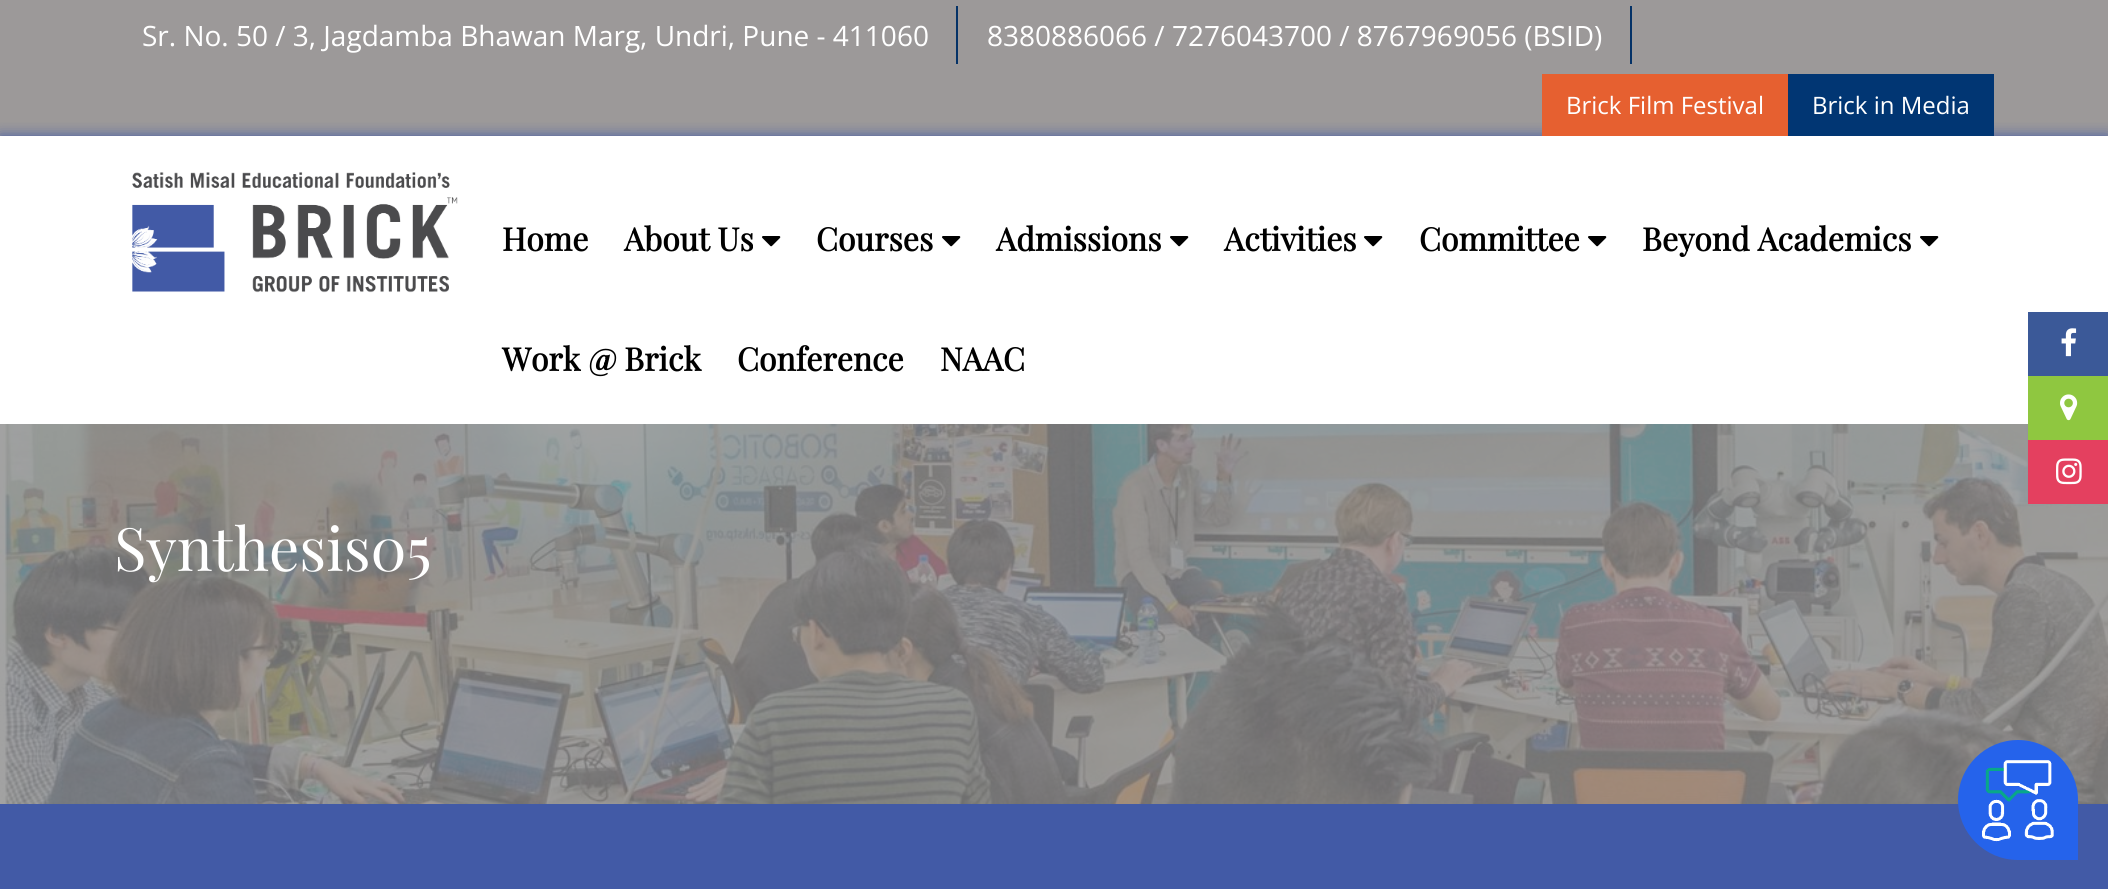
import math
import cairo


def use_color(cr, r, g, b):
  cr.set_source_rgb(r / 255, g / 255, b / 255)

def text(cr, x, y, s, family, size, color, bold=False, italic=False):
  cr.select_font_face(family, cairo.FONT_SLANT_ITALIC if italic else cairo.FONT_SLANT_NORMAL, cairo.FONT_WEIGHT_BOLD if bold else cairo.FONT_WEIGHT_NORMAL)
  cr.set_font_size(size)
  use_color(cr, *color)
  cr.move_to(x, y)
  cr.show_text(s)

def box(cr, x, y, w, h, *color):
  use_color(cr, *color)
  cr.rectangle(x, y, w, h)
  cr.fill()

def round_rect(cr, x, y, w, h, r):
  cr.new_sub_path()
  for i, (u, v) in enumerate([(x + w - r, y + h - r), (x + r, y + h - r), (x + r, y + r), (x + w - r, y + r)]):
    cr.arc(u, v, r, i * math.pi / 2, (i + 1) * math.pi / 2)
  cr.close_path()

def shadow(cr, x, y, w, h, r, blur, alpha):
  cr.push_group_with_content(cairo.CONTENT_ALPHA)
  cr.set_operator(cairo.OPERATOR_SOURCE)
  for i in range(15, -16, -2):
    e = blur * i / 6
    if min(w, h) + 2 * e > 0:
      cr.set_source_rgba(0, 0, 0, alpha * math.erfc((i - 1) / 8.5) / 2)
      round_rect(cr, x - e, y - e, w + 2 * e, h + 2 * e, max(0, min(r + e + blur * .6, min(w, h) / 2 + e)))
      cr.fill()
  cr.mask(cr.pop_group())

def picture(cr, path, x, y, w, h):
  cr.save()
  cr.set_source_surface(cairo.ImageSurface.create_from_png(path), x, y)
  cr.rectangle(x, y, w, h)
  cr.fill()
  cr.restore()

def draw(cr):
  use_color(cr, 255, 255, 255)
  cr.paint()
  box(cr, 0, 0, 2108, 136, 156, 153, 153)
  box(cr, 956, 6, 2, 58, 4, 50, 103)
  box(cr, 1630, 6, 2, 58, 4, 50, 103)
  cr.save()
  cr.rectangle(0, 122, 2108, 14)
  cr.clip()
  use_color(cr, 66, 90, 166)
  shadow(cr, 0, 136, 2108, 288, 0, 7, 1)
  cr.restore()
  box(cr, 1542, 74, 246, 62, 230, 96, 48)
  box(cr, 1788, 74, 206, 62, 1, 54, 115)
  picture(cr, "img_01.png", 132, 172, 326, 121)
  picture(cr, "img_02.png", 762, 236, 19, 11)
  picture(cr, "img_02.png", 942, 236, 19, 11)
  picture(cr, "img_02.png", 1170, 236, 19, 11)
  picture(cr, "img_02.png", 1364, 236, 19, 11)
  picture(cr, "img_02.png", 1588, 236, 19, 11)
  picture(cr, "img_02.png", 1920, 236, 19, 11)
  box(cr, 2028, 312, 80, 64, 59, 89, 152)
  picture(cr, "img_03.png", 2061, 328, 16, 29)
  picture(cr, "img_06.png", 0, 424, 2108, 380)
  box(cr, 2028, 376, 80, 64, 143, 199, 64)
  picture(cr, "img_04.png", 2060, 394, 18, 27)
  box(cr, 2028, 440, 80, 64, 228, 64, 95)
  picture(cr, "img_05.png", 2056, 458, 26, 27)
  box(cr, 0, 804, 2108, 85, 66, 90, 166)
  use_color(cr, 37, 99, 235)
  cr.new_path()
  cr.move_to(2018, 740)
  cr.curve_to(2051, 740, 2078, 767, 2078, 800)
  cr.line_to(2078, 860)
  cr.line_to(2018, 860)
  cr.curve_to(1985, 860, 1958, 833, 1958, 800)
  cr.curve_to(1958, 767, 1985, 740, 2018, 740)
  cr.close_path()
  cr.fill()
  picture(cr, "img_07.png", 1982, 760, 72, 82)
  text(cr, 142, 46, "Sr. No. 50 / 3, Jagdamba Bhawan Marg, Undri, Pune - 411060", "Open Sans", 28, (255, 255, 255))
  text(cr, 987, 46, "8380886066 / 7276043700 / 8767969056 (BSID)", "Open Sans", 28, (255, 255, 255))
  text(cr, 1566, 114, "Brick Film Festival", "Open Sans", 24, (255, 255, 255))
  text(cr, 1812, 114, "Brick in Media", "Open Sans", 24, (255, 255, 255))
  text(cr, 502, 251, "Home", "Playfair Display", 32, (0, 0, 0), bold=True)
  text(cr, 624, 251, "About Us", "Playfair Display", 32, (0, 0, 0), bold=True)
  text(cr, 816, 251, "Courses", "Playfair Display", 32, (0, 0, 0), bold=True)
  text(cr, 996, 251, "Admissions", "Playfair Display", 32, (0, 0, 0), bold=True)
  text(cr, 1224, 251, "Activities", "Playfair Display", 32, (0, 0, 0), bold=True)
  text(cr, 1419, 251, "Committee", "Playfair Display", 32, (0, 0, 0), bold=True)
  text(cr, 1642, 251, "Beyond Academics", "Playfair Display", 32, (0, 0, 0), bold=True)
  text(cr, 502, 371, "Work @ Brick", "Playfair Display", 32, (0, 0, 0), bold=True)
  text(cr, 737, 371, "Conference", "Playfair Display", 32, (0, 0, 0), bold=True)
  text(cr, 940, 371, "NAAC", "Playfair Display", 32, (0, 0, 0), bold=True)
  text(cr, 114, 571, "Synthesis05", "Playfair Display", 60, (255, 255, 255))


surface = cairo.ImageSurface(cairo.FORMAT_RGB24, 2108, 889)
cr = cairo.Context(surface)
options = cairo.FontOptions()
options.set_hint_metrics(cairo.HINT_METRICS_OFF)
options.set_hint_style(cairo.HINT_STYLE_NONE)
cr.set_font_options(options)
cr.set_miter_limit(4)
draw(cr)
surface.write_to_png("out.png")
